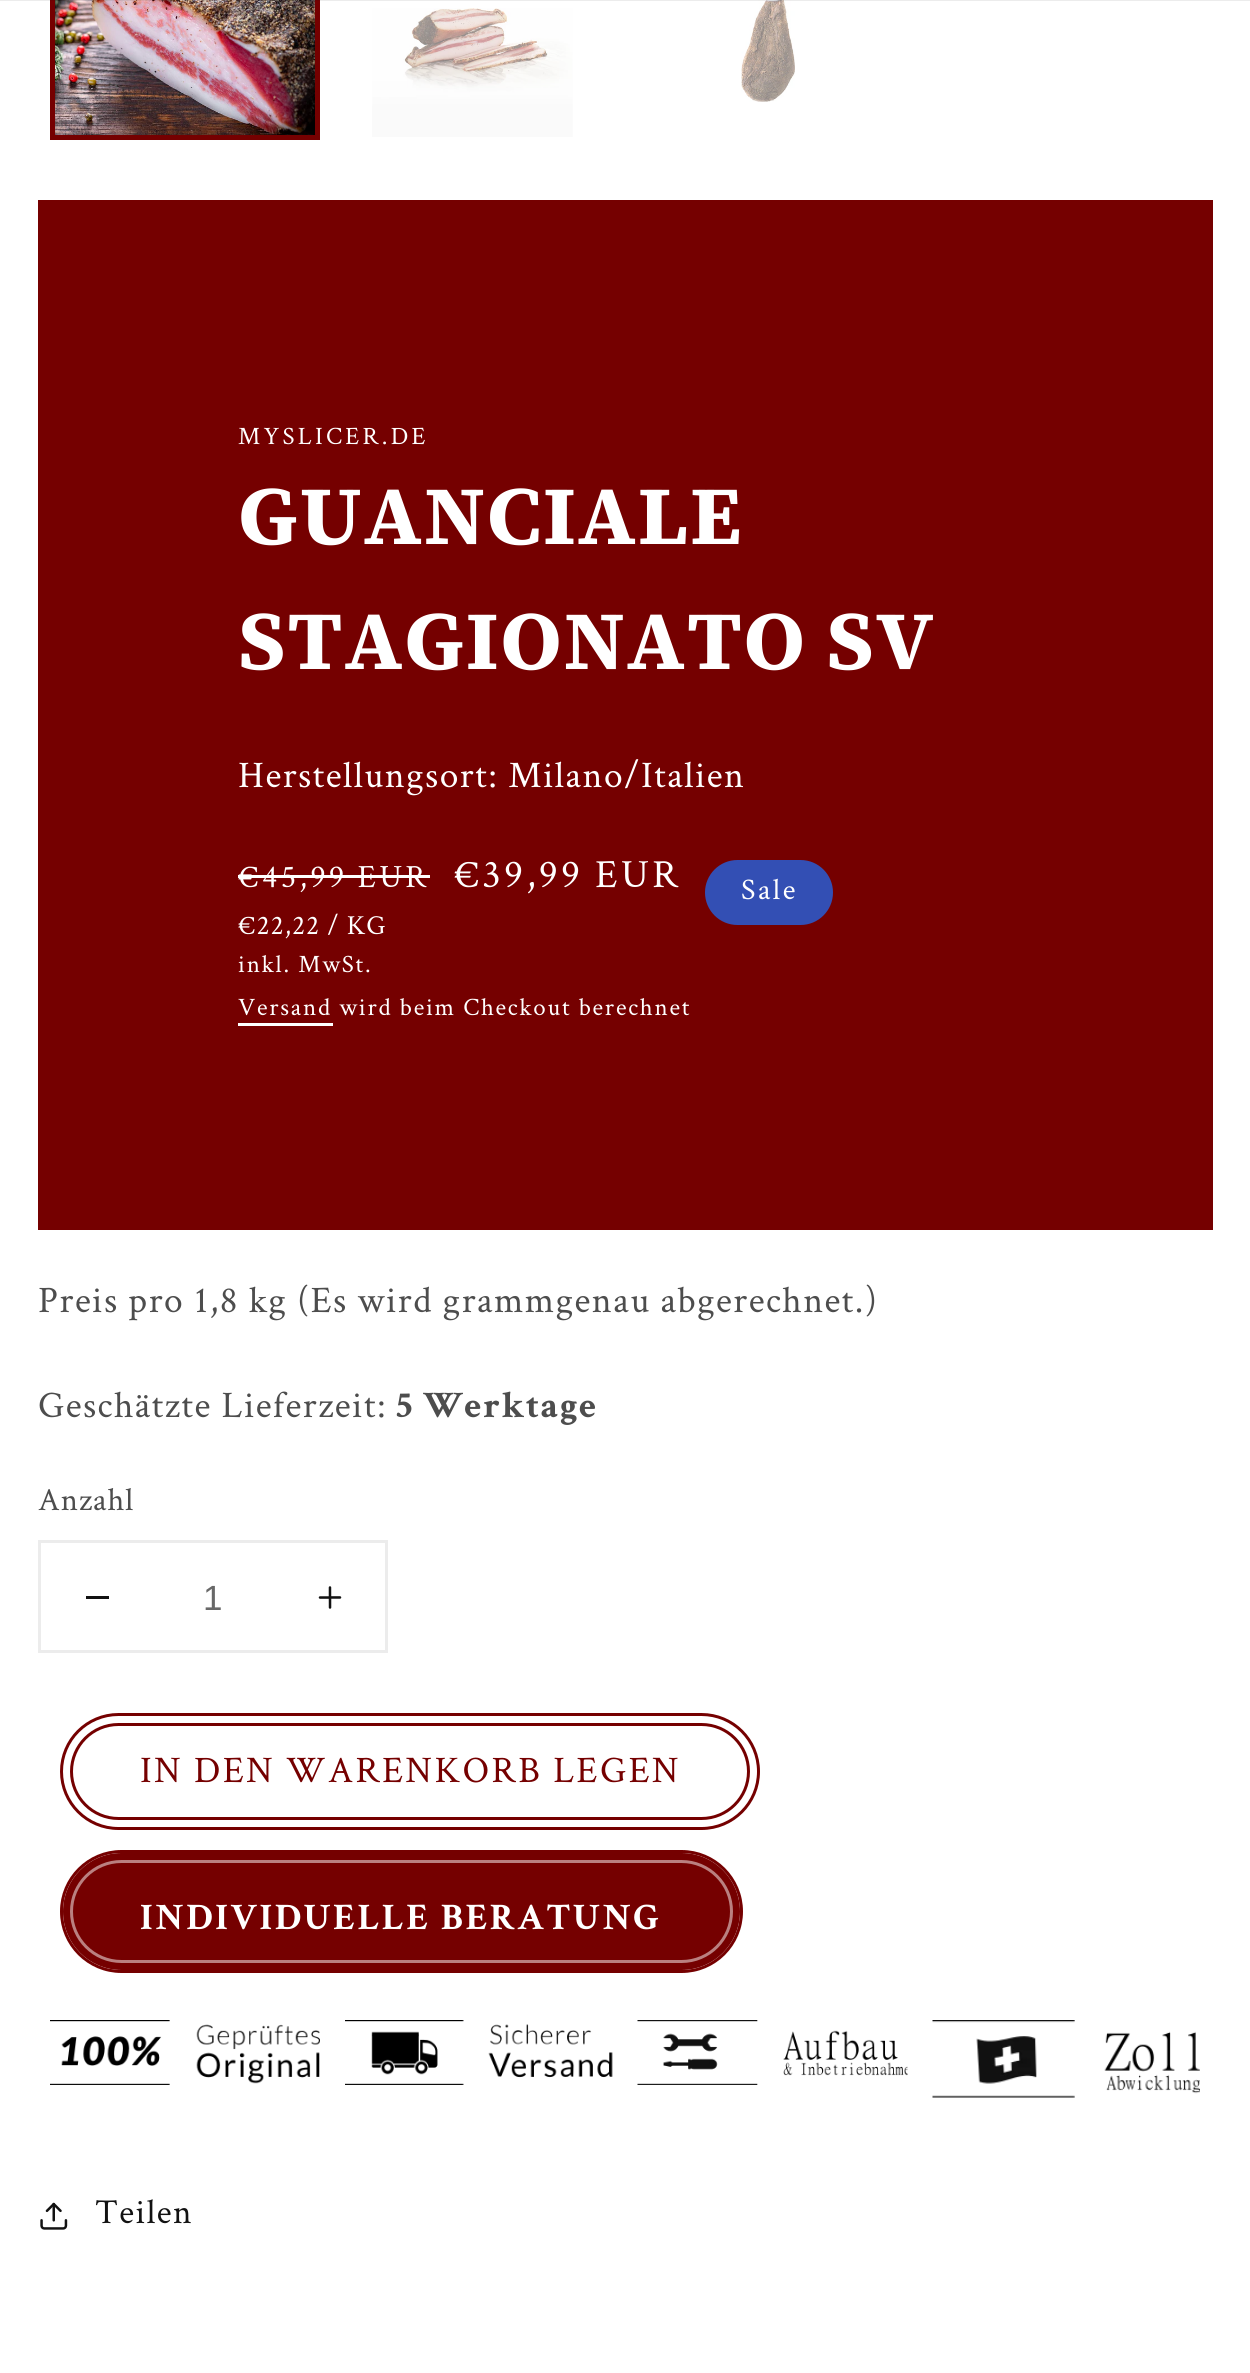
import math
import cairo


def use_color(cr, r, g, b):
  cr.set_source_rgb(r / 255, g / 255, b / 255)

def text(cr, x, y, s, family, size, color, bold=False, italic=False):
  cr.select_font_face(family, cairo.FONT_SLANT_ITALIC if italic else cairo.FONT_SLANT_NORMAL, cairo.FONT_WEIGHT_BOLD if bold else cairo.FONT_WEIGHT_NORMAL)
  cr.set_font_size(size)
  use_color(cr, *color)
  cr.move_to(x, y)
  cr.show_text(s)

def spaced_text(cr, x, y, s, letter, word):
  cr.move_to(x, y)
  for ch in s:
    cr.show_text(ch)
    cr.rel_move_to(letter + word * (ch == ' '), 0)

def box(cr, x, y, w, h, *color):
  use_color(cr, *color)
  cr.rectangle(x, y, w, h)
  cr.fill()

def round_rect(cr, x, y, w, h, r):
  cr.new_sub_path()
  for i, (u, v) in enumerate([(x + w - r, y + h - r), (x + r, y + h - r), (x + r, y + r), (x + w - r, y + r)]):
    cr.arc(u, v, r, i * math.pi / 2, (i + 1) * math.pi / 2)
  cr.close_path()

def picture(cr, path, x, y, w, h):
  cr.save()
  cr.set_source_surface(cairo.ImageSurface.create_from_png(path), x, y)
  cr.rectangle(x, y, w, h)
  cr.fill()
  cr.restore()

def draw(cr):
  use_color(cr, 255, 255, 255)
  cr.paint()
  cr.rectangle(52.5, -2.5, 265, 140)
  use_color(cr, 117, 0, 0)
  cr.set_line_width(5)
  cr.stroke()
  picture(cr, "img_01.png", 55, 0, 260, 135)
  picture(cr, "img_03.png", 741, 0, 54, 102)
  cr.set_source_rgba(0.071, 0.071, 0.071, 0.08)
  cr.rectangle(0, 0, 1250, 1)
  cr.fill()
  picture(cr, "img_02.png", 372, 8, 201, 129)
  box(cr, 38, 200, 1175, 1030, 117, 0, 0)
  box(cr, 238, 875, 192, 3, 255, 255, 255)
  use_color(cr, 51, 79, 180)
  round_rect(cr, 706.5, 861.5, 125, 62, 31)
  cr.fill_preserve()
  cr.set_line_width(3)
  cr.stroke()
  box(cr, 238, 1023, 95, 3, 255, 255, 255)
  cr.rectangle(39.5, 1541.5, 347, 110)
  use_color(cr, 236, 236, 236)
  cr.stroke()
  box(cr, 86, 1596, 23, 3, 18, 18, 18)
  picture(cr, "img_04.png", 318, 1586, 24, 23)
  round_rect(cr, 61.5, 1714.5, 697, 114, 57)
  use_color(cr, 117, 0, 0)
  cr.stroke()
  round_rect(cr, 71.5, 1724.5, 677, 94, 47)
  cr.stroke()
  round_rect(cr, 61.5, 1851.5, 680, 120, 60)
  cr.stroke()
  round_rect(cr, 63, 1853, 677, 117, 58.5)
  cr.fill()
  round_rect(cr, 71.5, 1861.5, 660, 100, 50)
  use_color(cr, 186, 128, 128)
  cr.stroke()
  picture(cr, "img_05.png", 50, 2020, 270, 65)
  picture(cr, "img_06.png", 345, 2020, 268, 65)
  picture(cr, "img_07.png", 637, 2020, 271, 65)
  picture(cr, "img_08.png", 932, 2020, 268, 78)
  picture(cr, "img_09.png", 40, 2202, 28, 28)
  cr.select_font_face("Crimson Text")
  cr.set_font_size(25)
  use_color(cr, 255, 255, 255)
  spaced_text(cr, 238, 444, "MYSLICER.DE", 3.25, 0)
  cr.select_font_face("Source Serif 4", cairo.FONT_SLANT_NORMAL, cairo.FONT_WEIGHT_BOLD)
  cr.set_font_size(82.5)
  spaced_text(cr, 238, 544, "GUANCIALE", 1.5, 0)
  spaced_text(cr, 238, 669, "STAGIONATO SV", 1.5, 0)
  cr.select_font_face("Crimson Text")
  cr.set_font_size(37.5)
  spaced_text(cr, 238, 787, "Herstellungsort: Milano/Italien", 1.5, 0)
  cr.set_font_size(32.5)
  spaced_text(cr, 238, 887, "€45,99 EUR", 3.25, 0)
  cr.set_font_size(40)
  spaced_text(cr, 454, 887, "€39,99 EUR", 3.25, 0)
  cr.set_font_size(27.5)
  spaced_text(cr, 238, 934, "€22,22 / KG", 1, 0)
  cr.set_font_size(30)
  spaced_text(cr, 741, 899, "Sale", 2.5, 0)
  cr.set_font_size(25)
  spaced_text(cr, 238, 972, "inkl. MwSt.", 1.75, 0)
  spaced_text(cr, 238, 1015, "Versand wird beim Checkout berechnet", 1.75, 0)
  cr.set_font_size(37.5)
  use_color(cr, 77, 77, 77)
  spaced_text(cr, 38, 1312, "Preis pro 1,8 kg (Es wird grammgenau abgerechnet.)", 1.5, 0)
  spaced_text(cr, 38, 1417, "Geschätzte Lieferzeit:", 1.5, 0)
  cr.select_font_face("Crimson Text", cairo.FONT_SLANT_NORMAL, cairo.FONT_WEIGHT_BOLD)
  spaced_text(cr, 396, 1417, "5 Werktage", 1.5, 0)
  cr.select_font_face("Crimson Text")
  cr.set_font_size(32.5)
  spaced_text(cr, 38, 1510, "Anzahl", 1, 0)
  text(cr, 203, 1610, "1", "Liberation Sans", 35, (104, 104, 104))
  cr.select_font_face("Crimson Text")
  cr.set_font_size(37.5)
  use_color(cr, 117, 0, 0)
  spaced_text(cr, 140, 1782, "IN DEN WARENKORB LEGEN", 2.5, 0)
  cr.select_font_face("Crimson Text", cairo.FONT_SLANT_NORMAL, cairo.FONT_WEIGHT_BOLD)
  use_color(cr, 255, 255, 255)
  spaced_text(cr, 140, 1929, "INDIVIDUELLE BERATUNG", 2.5, 0)
  cr.select_font_face("Crimson Text")
  cr.set_font_size(35)
  use_color(cr, 18, 18, 18)
  spaced_text(cr, 95, 2223, "Teilen", 1.5, 0)


surface = cairo.ImageSurface(cairo.FORMAT_RGB24, 1250, 2373)
cr = cairo.Context(surface)
options = cairo.FontOptions()
options.set_hint_metrics(cairo.HINT_METRICS_OFF)
options.set_hint_style(cairo.HINT_STYLE_NONE)
cr.set_font_options(options)
cr.set_miter_limit(4)
draw(cr)
surface.write_to_png("out.png")
